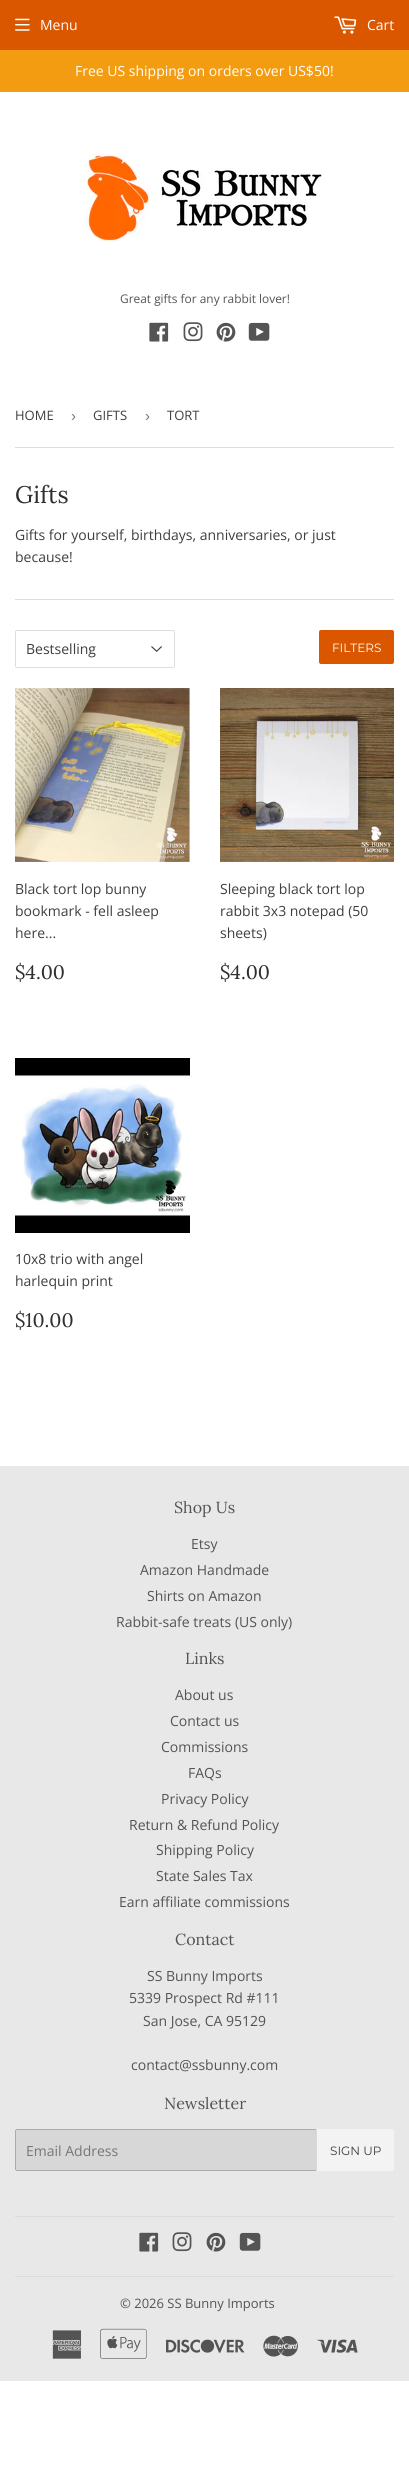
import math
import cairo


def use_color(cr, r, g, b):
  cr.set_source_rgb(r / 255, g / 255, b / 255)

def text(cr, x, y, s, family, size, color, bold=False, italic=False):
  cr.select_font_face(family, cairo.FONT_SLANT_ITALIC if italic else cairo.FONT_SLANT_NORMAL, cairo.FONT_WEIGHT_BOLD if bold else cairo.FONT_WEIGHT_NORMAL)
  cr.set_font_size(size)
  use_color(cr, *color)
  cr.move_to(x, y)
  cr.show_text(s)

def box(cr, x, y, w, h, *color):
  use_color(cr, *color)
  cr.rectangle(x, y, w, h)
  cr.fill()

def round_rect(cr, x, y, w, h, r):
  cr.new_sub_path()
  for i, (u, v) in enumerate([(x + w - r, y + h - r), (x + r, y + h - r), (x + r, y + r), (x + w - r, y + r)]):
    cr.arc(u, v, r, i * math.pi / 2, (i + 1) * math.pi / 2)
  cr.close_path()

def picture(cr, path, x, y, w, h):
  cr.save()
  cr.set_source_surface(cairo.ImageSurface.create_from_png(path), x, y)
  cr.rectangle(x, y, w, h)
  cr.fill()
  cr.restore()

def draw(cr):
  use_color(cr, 255, 255, 255)
  cr.paint()
  box(cr, 0, 0, 409, 50, 218, 87, 0)
  picture(cr, "img_01.png", 15, 18, 15, 13)
  picture(cr, "img_02.png", 334, 16, 23, 18)
  picture(cr, "img_03.png", 84, 153, 238, 89)
  picture(cr, "img_04.png", 149, 322, 20, 20)
  picture(cr, "img_05.png", 183, 322, 20, 20)
  picture(cr, "img_06.png", 216, 322, 20, 20)
  picture(cr, "img_07.png", 248, 322, 22, 19)
  box(cr, 0, 50, 409, 42, 243, 156, 18)
  box(cr, 15, 447, 379, 1, 222, 222, 222)
  box(cr, 15, 599, 379, 1, 222, 222, 222)
  picture(cr, "img_08.png", 151, 646, 11, 6)
  round_rect(cr, 15.5, 630.5, 159, 37, 1.5)
  cr.set_line_width(1)
  cr.stroke()
  use_color(cr, 218, 87, 0)
  round_rect(cr, 319, 630, 75, 34, 2)
  cr.fill()
  picture(cr, "img_09.png", 15, 688, 175, 174)
  picture(cr, "img_10.png", 220, 688, 174, 174)
  picture(cr, "img_11.png", 15, 1058, 175, 175)
  box(cr, 0, 1466, 409, 915, 232, 232, 232)
  use_color(cr, 215, 215, 215)
  round_rect(cr, 15, 2129, 302, 42, 2)
  cr.fill()
  box(cr, 16, 2129, 300, 1, 171, 171, 171)
  box(cr, 16, 2170, 300, 1, 171, 171, 171)
  box(cr, 15, 2130, 1, 40, 171, 171, 171)
  use_color(cr, 243, 243, 243)
  cr.new_path()
  cr.move_to(317, 2129)
  cr.line_to(392, 2129)
  cr.curve_to(393, 2129, 394, 2130, 394, 2131)
  cr.line_to(394, 2169)
  cr.curve_to(394, 2170, 393, 2171, 392, 2171)
  cr.line_to(317, 2171)
  cr.close_path()
  cr.fill()
  box(cr, 15, 2216, 379, 1, 219, 219, 219)
  picture(cr, "img_12.png", 139, 2232, 20, 20)
  picture(cr, "img_13.png", 172, 2232, 20, 20)
  picture(cr, "img_14.png", 206, 2232, 20, 20)
  picture(cr, "img_15.png", 239, 2232, 22, 19)
  box(cr, 15, 2276, 379, 1, 219, 219, 219)
  picture(cr, "img_16.png", 52, 2330, 30, 29)
  picture(cr, "img_17.png", 100, 2328, 47, 31)
  picture(cr, "img_18.png", 166, 2339, 79, 14)
  picture(cr, "img_19.png", 263, 2335, 35, 22)
  picture(cr, "img_20.png", 317, 2339, 41, 14)
  text(cr, 40, 30, "Menu", "Open Sans", 14, (255, 255, 255))
  text(cr, 367, 30, "Cart", "Open Sans", 14, (255, 255, 255))
  text(cr, 120, 303, "Great gifts for any rabbit lover!", "Open Sans", 11.9, (84, 84, 84))
  text(cr, 75, 76, "Free US shipping on orders over US$50!", "Open Sans", 14, (255, 255, 255))
  text(cr, 15, 420, "HOME", "Open Sans", 13, (62, 62, 62))
  text(cr, 71, 421, "›", "Liberation Sans", 15, (118, 118, 118))
  text(cr, 93, 420, "GIFTS", "Open Sans", 13, (62, 62, 62))
  text(cr, 145, 421, "›", "Liberation Sans", 15, (118, 118, 118))
  text(cr, 167, 420, "TORT", "Open Sans", 13, (62, 62, 62))
  text(cr, 15, 503, "Gifts", "Lora", 24, (47, 47, 47))
  text(cr, 15, 540, "Gifts for yourself, birthdays, anniversaries, or just", "Open Sans", 14, (62, 62, 62))
  text(cr, 15, 562, "because!", "Open Sans", 14, (62, 62, 62))
  text(cr, 26, 654, "Bestselling", "Open Sans", 14, (62, 62, 62))
  text(cr, 332, 652, "FILTERS", "Montserrat Thin", 12, (255, 255, 255))
  text(cr, 15, 894, "Black tort lop bunny", "Open Sans", 14, (62, 62, 62))
  text(cr, 15, 916, "bookmark - fell asleep", "Open Sans", 14, (62, 62, 62))
  text(cr, 15, 938, "here...", "Open Sans", 14, (62, 62, 62))
  text(cr, 15, 979, "$4.00", "Lora", 19.5, (47, 47, 47))
  text(cr, 220, 894, "Sleeping black tort lop", "Open Sans", 14, (62, 62, 62))
  text(cr, 220, 916, "rabbit 3x3 notepad (50", "Open Sans", 14, (62, 62, 62))
  text(cr, 220, 938, "sheets)", "Open Sans", 14, (62, 62, 62))
  text(cr, 220, 979, "$4.00", "Lora", 19.5, (47, 47, 47))
  text(cr, 15, 1264, "10x8 trio with angel", "Open Sans", 14, (62, 62, 62))
  text(cr, 15, 1286, "harlequin print", "Open Sans", 14, (62, 62, 62))
  text(cr, 15, 1327, "$10.00", "Lora", 19.5, (47, 47, 47))
  text(cr, 174, 1513, "Shop Us", "Lora", 16, (84, 84, 84))
  text(cr, 191, 1549, "Etsy", "Open Sans", 14, (84, 84, 84))
  text(cr, 140, 1575, "Amazon Handmade", "Open Sans", 14, (84, 84, 84))
  text(cr, 147, 1601, "Shirts on Amazon", "Open Sans", 14, (84, 84, 84))
  text(cr, 116, 1627, "Rabbit-safe treats (US only)", "Open Sans", 14, (84, 84, 84))
  text(cr, 185, 1664, "Links", "Lora", 16, (84, 84, 84))
  text(cr, 175, 1700, "About us", "Open Sans", 14, (84, 84, 84))
  text(cr, 170, 1726, "Contact us", "Open Sans", 14, (84, 84, 84))
  text(cr, 161, 1752, "Commissions", "Open Sans", 14, (84, 84, 84))
  text(cr, 188, 1778, "FAQs", "Open Sans", 14, (84, 84, 84))
  text(cr, 161, 1804, "Privacy Policy", "Open Sans", 14, (84, 84, 84))
  text(cr, 129, 1830, "Return & Refund Policy", "Open Sans", 14, (84, 84, 84))
  text(cr, 156, 1855, "Shipping Policy", "Open Sans", 14, (84, 84, 84))
  text(cr, 156, 1881, "State Sales Tax", "Open Sans", 14, (84, 84, 84))
  text(cr, 119, 1907, "Earn affiliate commissions", "Open Sans", 14, (84, 84, 84))
  text(cr, 175, 1945, "Contact", "Lora", 16, (84, 84, 84))
  text(cr, 147, 1981, "SS Bunny Imports", "Open Sans", 14, (84, 84, 84))
  text(cr, 129, 2003, "5339 Prospect Rd #111", "Open Sans", 14, (84, 84, 84))
  text(cr, 143, 2026, "San Jose, CA 95129", "Open Sans", 14, (84, 84, 84))
  text(cr, 131, 2070, "contact@ssbunny.com", "Open Sans", 14, (84, 84, 84))
  text(cr, 164, 2109, "Newsletter", "Lora", 16, (84, 84, 84))
  text(cr, 26, 2156, "Email Address", "Open Sans", 14, (118, 118, 118))
  text(cr, 330, 2155, "SIGN UP", "Montserrat Thin", 12, (62, 62, 62))
  text(cr, 120, 2308, "© 2026 SS Bunny Imports", "Open Sans", 13, (84, 84, 84))


surface = cairo.ImageSurface(cairo.FORMAT_RGB24, 409, 2466)
cr = cairo.Context(surface)
options = cairo.FontOptions()
options.set_hint_metrics(cairo.HINT_METRICS_OFF)
options.set_hint_style(cairo.HINT_STYLE_NONE)
cr.set_font_options(options)
cr.set_miter_limit(4)
draw(cr)
surface.write_to_png("out.png")
